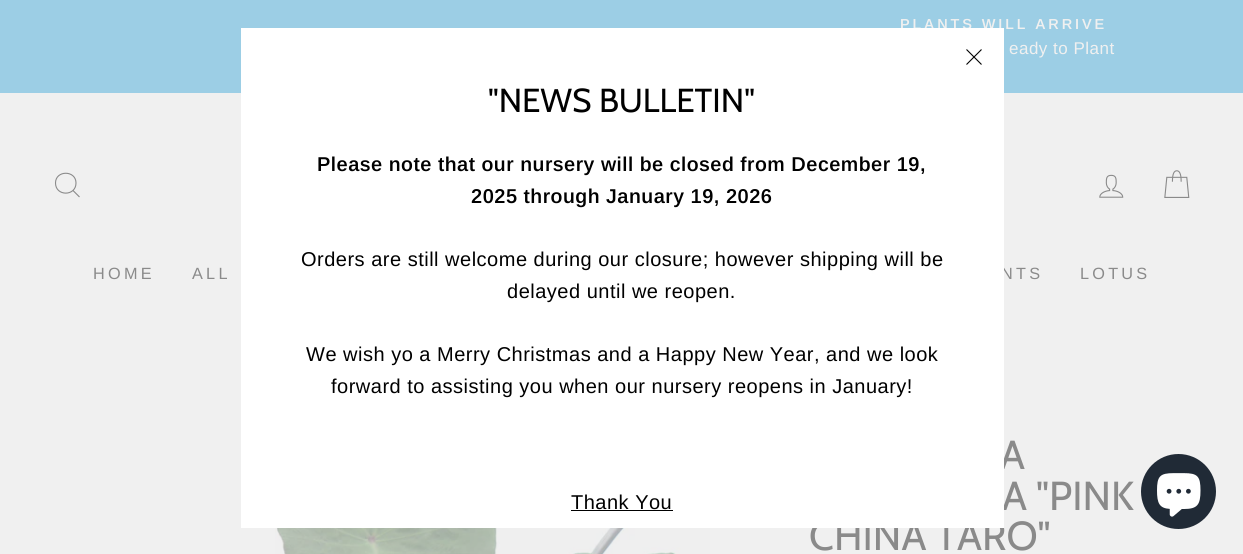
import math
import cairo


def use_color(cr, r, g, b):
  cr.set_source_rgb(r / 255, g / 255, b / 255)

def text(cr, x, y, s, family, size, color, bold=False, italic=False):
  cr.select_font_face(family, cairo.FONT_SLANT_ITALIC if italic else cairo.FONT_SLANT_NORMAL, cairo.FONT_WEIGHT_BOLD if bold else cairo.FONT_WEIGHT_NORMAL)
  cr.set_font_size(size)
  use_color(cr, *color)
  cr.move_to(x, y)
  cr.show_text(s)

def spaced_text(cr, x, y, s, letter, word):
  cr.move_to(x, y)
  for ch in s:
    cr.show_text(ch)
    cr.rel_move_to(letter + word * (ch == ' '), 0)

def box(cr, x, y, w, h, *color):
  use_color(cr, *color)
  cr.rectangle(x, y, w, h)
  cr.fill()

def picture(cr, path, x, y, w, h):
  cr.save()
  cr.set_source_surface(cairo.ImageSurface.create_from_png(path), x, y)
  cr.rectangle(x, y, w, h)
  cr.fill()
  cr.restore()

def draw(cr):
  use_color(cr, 240, 240, 240)
  cr.paint()
  box(cr, 0, 0, 1243, 93, 156, 206, 229)
  cr.new_path()
  cr.move_to(76, 183)
  cr.curve_to(76, 196.5, 55.5, 196.5, 55.5, 183)
  cr.curve_to(55.5, 170, 76, 170, 76, 183)
  cr.close_path()
  cr.move_to(79.5, 197)
  cr.line_to(73, 190.5)
  use_color(cr, 138, 138, 138)
  cr.set_line_width(1.1)
  cr.stroke()
  picture(cr, "img_01.png", 1099, 174, 25, 24)
  picture(cr, "img_02.png", 1164, 170, 26, 28)
  picture(cr, "img_03.png", 275, 528, 435, 26)
  use_color(cr, 32, 42, 54)
  cr.arc(1178.5, 491.5, 37.5, 0, 2 * math.pi)
  cr.fill()
  picture(cr, "img_04.png", 1157, 473, 44, 44)
  cr.select_font_face("Arimo SemiBold")
  cr.set_font_size(14.5)
  use_color(cr, 240, 240, 240)
  spaced_text(cr, 900, 29, "PLANTS WILL ARRIVE", 2.9, 0)
  cr.select_font_face("Arimo")
  cr.set_font_size(17)
  spaced_text(cr, 1009, 54, "eady to Plant", 0.5, 0)
  cr.set_font_size(16.25)
  use_color(cr, 138, 138, 138)
  spaced_text(cr, 93, 279, "HOME", 3.25, 0)
  spaced_text(cr, 192, 279, "ALL", 3.25, 0)
  spaced_text(cr, 1001, 279, "NTS", 3.25, 0)
  spaced_text(cr, 1080, 279, "LOTUS", 3.25, 0)
  text(cr, 1000, 469, "A", "Cabin", 40.5, (138, 138, 138))
  text(cr, 1002, 510, "A \"PINK", "Cabin", 40.5, (138, 138, 138))
  text(cr, 809, 550, "CHINA TARO\"", "Cabin", 40.5, (138, 138, 138))
  box(cr, 241, 28, 763, 500, 255, 255, 255)
  cr.new_path()
  cr.move_to(966.5, 49.5)
  cr.line_to(981.5, 64.5)
  cr.move_to(981.5, 49.5)
  cr.line_to(966.5, 64.5)
  use_color(cr, 0, 0, 0)
  cr.stroke()
  text(cr, 488, 112, "\"NEWS BULLETIN\"", "Cabin", 33.25, (0, 0, 0))
  cr.select_font_face("Arimo SemiBold")
  cr.set_font_size(20)
  spaced_text(cr, 317, 171, "Please note that our nursery will be closed from December 19,", 0.5, 0)
  spaced_text(cr, 471, 203, "2025 through January 19, 2026", 0.5, 0)
  cr.select_font_face("Arimo")
  spaced_text(cr, 301, 266, "Orders are still welcome during our closure; however shipping will be", 0.5, 0)
  spaced_text(cr, 507, 298, "delayed until we reopen.", 0.5, 0)
  spaced_text(cr, 306, 361, "We wish yo a Merry Christmas and a Happy New Year, and we look", 0.5, 0)
  spaced_text(cr, 331, 393, "forward to assisting you when our nursery reopens in January!", 0.5, 0)
  spaced_text(cr, 571, 509, "Thank You", 0.5, 0)
  box(cr, 571, 510, 102, 1, 0, 0, 0)


surface = cairo.ImageSurface(cairo.FORMAT_RGB24, 1243, 554)
cr = cairo.Context(surface)
options = cairo.FontOptions()
options.set_hint_metrics(cairo.HINT_METRICS_OFF)
options.set_hint_style(cairo.HINT_STYLE_NONE)
cr.set_font_options(options)
cr.set_miter_limit(4)
draw(cr)
surface.write_to_png("out.png")
